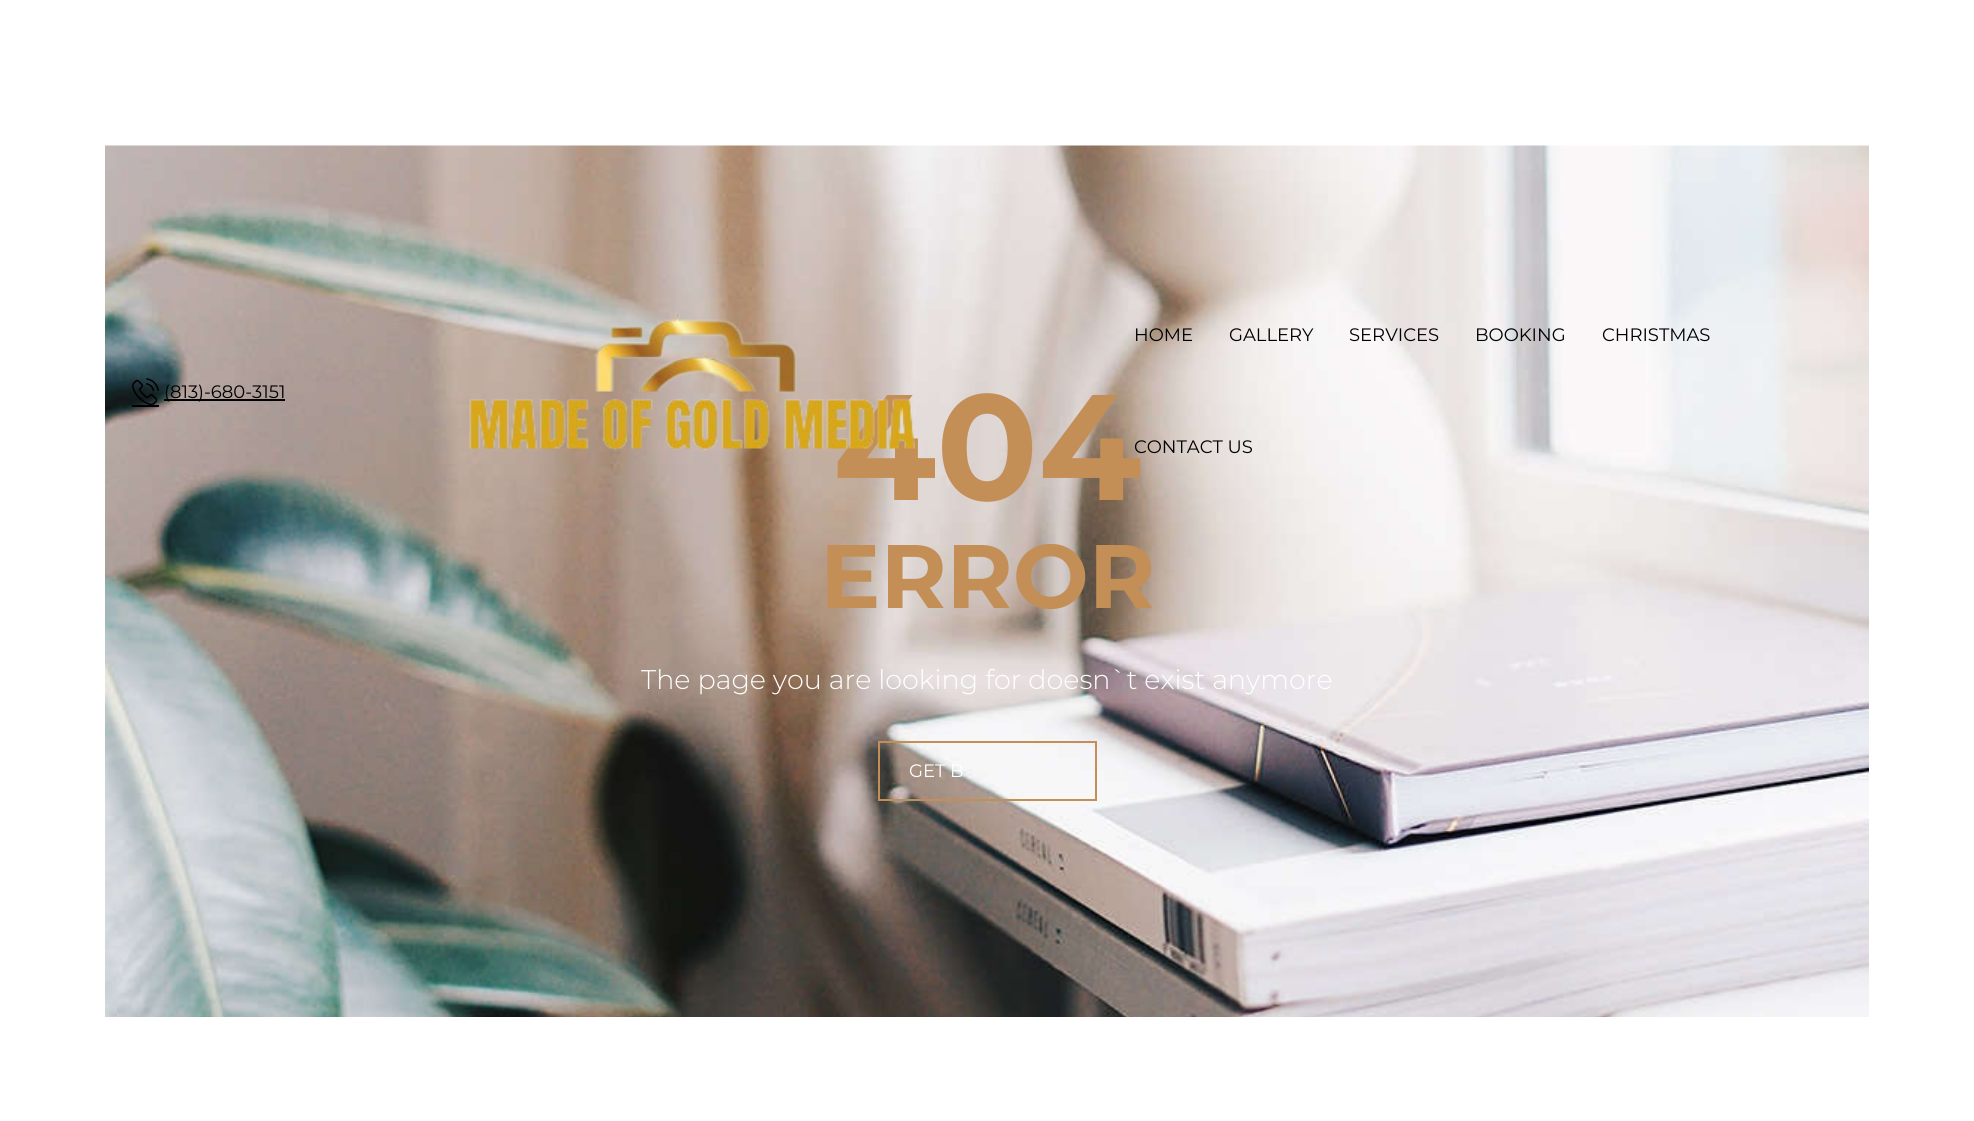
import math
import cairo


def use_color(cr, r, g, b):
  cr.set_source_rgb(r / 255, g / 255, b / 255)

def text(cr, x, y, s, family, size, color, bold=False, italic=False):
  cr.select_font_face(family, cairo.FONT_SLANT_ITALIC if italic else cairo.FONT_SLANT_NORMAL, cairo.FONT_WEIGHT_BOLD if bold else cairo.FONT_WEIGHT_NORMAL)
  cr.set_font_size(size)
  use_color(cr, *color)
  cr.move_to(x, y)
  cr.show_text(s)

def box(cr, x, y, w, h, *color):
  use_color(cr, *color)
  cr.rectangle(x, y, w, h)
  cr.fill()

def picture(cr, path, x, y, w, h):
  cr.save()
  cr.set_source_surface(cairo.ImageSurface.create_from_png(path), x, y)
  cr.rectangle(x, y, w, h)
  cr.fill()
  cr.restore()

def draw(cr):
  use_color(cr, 255, 255, 255)
  cr.paint()
  picture(cr, "img_03.png", 105, 145, 1764, 872)
  picture(cr, "img_01.png", 132, 378, 27, 27)
  box(cr, 132, 405, 27, 2, 0, 0, 0)
  box(cr, 164, 399, 121, 2, 0, 0, 0)
  cr.rectangle(879, 742, 217, 58)
  use_color(cr, 196, 143, 86)
  cr.stroke()
  text(cr, 164, 398, "(813)-680-3151", "Montserrat", 18, (0, 0, 0))
  text(cr, 1134, 341, "HOME", "Montserrat", 18, (0, 0, 0))
  text(cr, 1229, 341, "GALLERY", "Montserrat", 18, (0, 0, 0))
  text(cr, 1349, 341, "SERVICES", "Montserrat", 18, (0, 0, 0))
  text(cr, 1475, 341, "BOOKING", "Montserrat", 18, (0, 0, 0))
  text(cr, 1602, 341, "CHRISTMAS", "Montserrat", 18, (0, 0, 0))
  text(cr, 833, 500, "404", "Montserrat", 150, (196, 143, 86), bold=True)
  text(cr, 1134, 453, "CONTACT US", "Montserrat", 18, (0, 0, 0))
  picture(cr, "img_02.png", 469, 311, 447, 140)
  text(cr, 820, 608, "ERROR", "Montserrat", 90, (196, 143, 86), bold=True)
  text(cr, 641, 689, "The page you are looking for doesn`t exist anymore", "Montserrat Light", 27, (255, 255, 255))
  text(cr, 909, 777, "GET B", "Montserrat", 18, (255, 255, 255))


surface = cairo.ImageSurface(cairo.FORMAT_RGB24, 1974, 1121)
cr = cairo.Context(surface)
options = cairo.FontOptions()
options.set_hint_metrics(cairo.HINT_METRICS_OFF)
options.set_hint_style(cairo.HINT_STYLE_NONE)
cr.set_font_options(options)
cr.set_miter_limit(4)
draw(cr)
surface.write_to_png("out.png")
